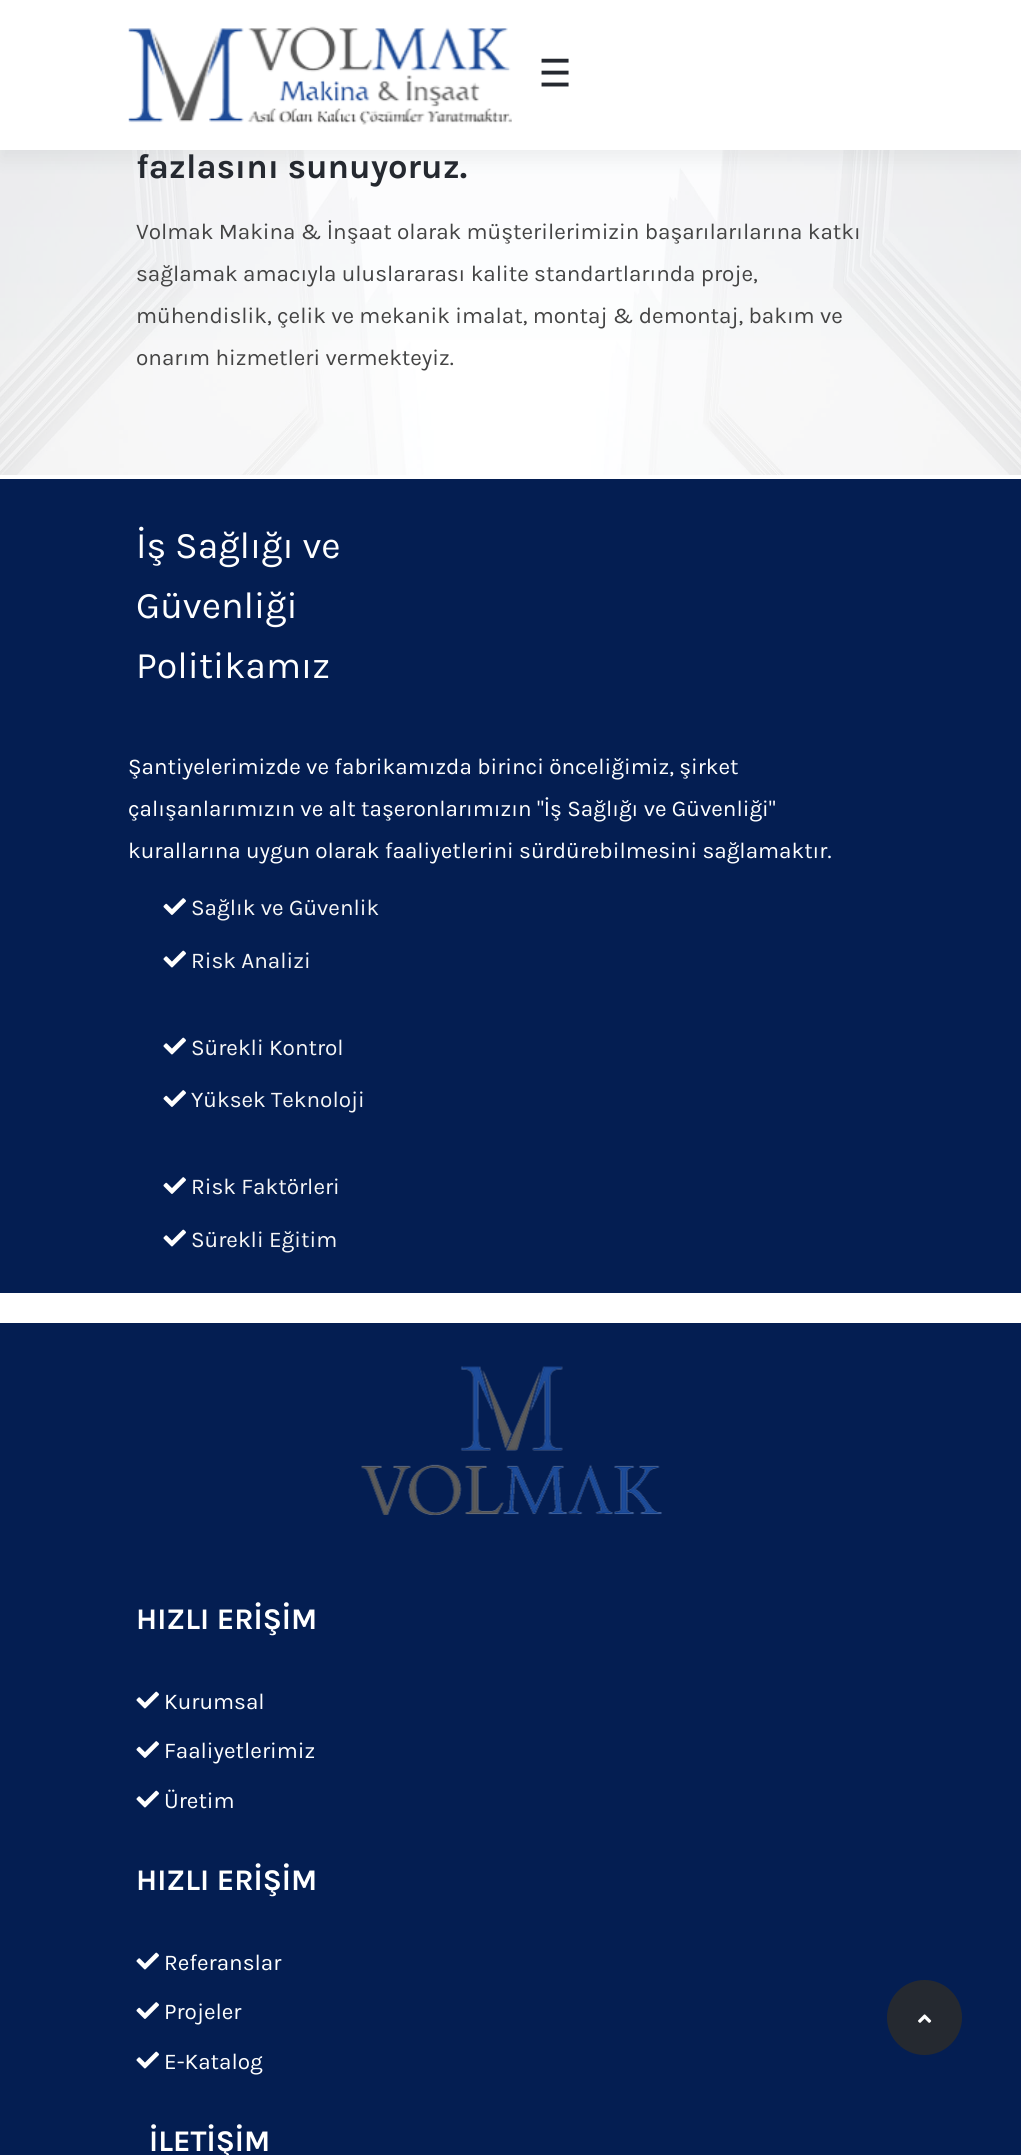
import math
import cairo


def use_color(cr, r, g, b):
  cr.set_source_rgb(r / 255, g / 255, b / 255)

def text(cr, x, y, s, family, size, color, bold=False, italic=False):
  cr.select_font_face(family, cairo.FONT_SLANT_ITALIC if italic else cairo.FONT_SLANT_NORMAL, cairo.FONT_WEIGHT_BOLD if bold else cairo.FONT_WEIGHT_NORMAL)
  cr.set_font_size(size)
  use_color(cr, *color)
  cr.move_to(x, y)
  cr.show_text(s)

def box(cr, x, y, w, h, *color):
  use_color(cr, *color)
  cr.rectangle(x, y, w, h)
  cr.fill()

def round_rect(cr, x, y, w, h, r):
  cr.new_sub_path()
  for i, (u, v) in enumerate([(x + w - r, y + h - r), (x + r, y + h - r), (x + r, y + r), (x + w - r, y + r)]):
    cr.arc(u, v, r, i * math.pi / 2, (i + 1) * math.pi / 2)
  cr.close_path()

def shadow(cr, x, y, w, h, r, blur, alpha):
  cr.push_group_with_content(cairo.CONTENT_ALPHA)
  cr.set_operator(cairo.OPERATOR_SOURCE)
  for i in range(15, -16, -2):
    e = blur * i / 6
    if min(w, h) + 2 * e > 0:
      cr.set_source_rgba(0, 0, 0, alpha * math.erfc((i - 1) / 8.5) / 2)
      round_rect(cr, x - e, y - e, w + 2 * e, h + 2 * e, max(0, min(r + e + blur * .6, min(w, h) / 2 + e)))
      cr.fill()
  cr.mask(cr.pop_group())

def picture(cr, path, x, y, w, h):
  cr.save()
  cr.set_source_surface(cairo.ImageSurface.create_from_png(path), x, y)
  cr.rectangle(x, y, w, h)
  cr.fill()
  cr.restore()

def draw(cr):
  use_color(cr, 255, 255, 255)
  cr.paint()
  gradient = cairo.LinearGradient(511, 476, 511, 41)
  gradient.add_color_stop_rgba(0, 1, 1, 1, 1)
  gradient.add_color_stop_rgba(1, 0.969, 0.976, 0.984, 1)
  cr.set_source(gradient)
  cr.rectangle(0, 150, 1021, 190)
  cr.fill()
  picture(cr, "img_03.png", 0, 150, 1021, 325)
  use_color(cr, 0, 0, 0)
  shadow(cr, 0, 9, 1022, 150, 0, 10, 0.06)
  box(cr, 0, 0, 1021, 150, 255, 255, 255)
  picture(cr, "img_01.png", 128, 26, 384, 99)
  picture(cr, "img_02.png", 541, 58, 28, 29)
  box(cr, 0, 479, 1021, 814, 4, 30, 82)
  picture(cr, "img_04.png", 163, 898, 23, 17)
  picture(cr, "img_05.png", 163, 950, 23, 18)
  picture(cr, "img_05.png", 163, 1037, 23, 18)
  picture(cr, "img_04.png", 163, 1090, 23, 17)
  picture(cr, "img_04.png", 163, 1177, 23, 17)
  picture(cr, "img_05.png", 163, 1229, 23, 18)
  box(cr, 0, 1323, 1021, 832, 4, 30, 82)
  picture(cr, "img_06.png", 361, 1366, 301, 149)
  picture(cr, "img_05.png", 136, 1691, 23, 18)
  picture(cr, "img_04.png", 136, 1741, 23, 17)
  picture(cr, "img_05.png", 136, 1790, 23, 18)
  picture(cr, "img_05.png", 136, 1952, 23, 18)
  picture(cr, "img_04.png", 136, 2002, 23, 17)
  picture(cr, "img_05.png", 136, 2051, 23, 18)
  use_color(cr, 37, 41, 48)
  cr.arc(924.5, 2017.5, 36.5, 0, 2 * math.pi)
  cr.fill_preserve()
  cr.stroke()
  picture(cr, "img_07.png", 918, 2014, 14, 9)
  text(cr, 136, 178, "fazlasını sunuyoruz.", "Karla", 34.5, (37, 41, 48), bold=True)
  text(cr, 136, 239, "Volmak Makina & İnşaat olarak müşterilerimizin başarılarılarına katkı", "Karla", 22.5, (68, 68, 68))
  text(cr, 136, 281, "sağlamak amacıyla uluslararası kalite standartlarında proje,", "Karla", 22.5, (68, 68, 68))
  text(cr, 136, 323, "mühendislik, çelik ve mekanik imalat, montaj & demontaj, bakım ve", "Karla", 22.5, (68, 68, 68))
  text(cr, 136, 365, "onarım hizmetleri vermekteyiz.", "Karla", 22.5, (68, 68, 68))
  text(cr, 136, 558, "İş Sağlığı ve", "Karla", 37.5, (255, 255, 255))
  text(cr, 136, 618, "Güvenliği", "Karla", 37.5, (255, 255, 255))
  text(cr, 136, 678, "Politikamız", "Karla", 37.5, (255, 255, 255))
  text(cr, 128, 774, "Şantiyelerimizde ve fabrikamızda birinci önceliğimiz, şirket", "Karla", 22.5, (255, 255, 255))
  text(cr, 128, 816, "çalışanlarımızın ve alt taşeronlarımızın \"İş Sağlığı ve Güvenliği\"", "Karla", 22.5, (255, 255, 255))
  text(cr, 128, 858, "kurallarına uygun olarak faaliyetlerini sürdürebilmesini sağlamaktır.", "Karla", 22.5, (255, 255, 255))
  text(cr, 191, 915, "Sağlık ve Güvenlik", "Karla", 22.5, (247, 247, 247))
  text(cr, 191, 968, "Risk Analizi", "Karla", 22.5, (247, 247, 247))
  text(cr, 191, 1055, "Sürekli Kontrol", "Karla", 22.5, (247, 247, 247))
  text(cr, 191, 1107, "Yüksek Teknoloji", "Karla", 22.5, (247, 247, 247))
  text(cr, 191, 1194, "Risk Faktörleri", "Karla", 22.5, (247, 247, 247))
  text(cr, 191, 1247, "Sürekli Eğitim", "Karla", 22.5, (247, 247, 247))
  text(cr, 136, 1629, "HIZLI ERİŞİM", "Karla", 30, (255, 255, 255), bold=True)
  text(cr, 164, 1709, "Kurumsal", "Karla", 22.5, (255, 255, 255))
  text(cr, 164, 1758, "Faaliyetlerimiz", "Karla", 22.5, (255, 255, 255))
  text(cr, 164, 1808, "Üretim", "Karla", 22.5, (255, 255, 255))
  text(cr, 136, 1890, "HIZLI ERİŞİM", "Karla", 30, (255, 255, 255), bold=True)
  text(cr, 164, 1970, "Referanslar", "Karla", 22.5, (255, 255, 255))
  text(cr, 164, 2019, "Projeler", "Karla", 22.5, (255, 255, 255))
  text(cr, 164, 2069, "E-Katalog", "Karla", 22.5, (255, 255, 255))
  text(cr, 149, 2151, "İLETİŞİM", "Karla", 30, (255, 255, 255), bold=True)


surface = cairo.ImageSurface(cairo.FORMAT_RGB24, 1021, 2155)
cr = cairo.Context(surface)
options = cairo.FontOptions()
options.set_hint_metrics(cairo.HINT_METRICS_OFF)
options.set_hint_style(cairo.HINT_STYLE_NONE)
cr.set_font_options(options)
cr.set_miter_limit(4)
draw(cr)
surface.write_to_png("out.png")
